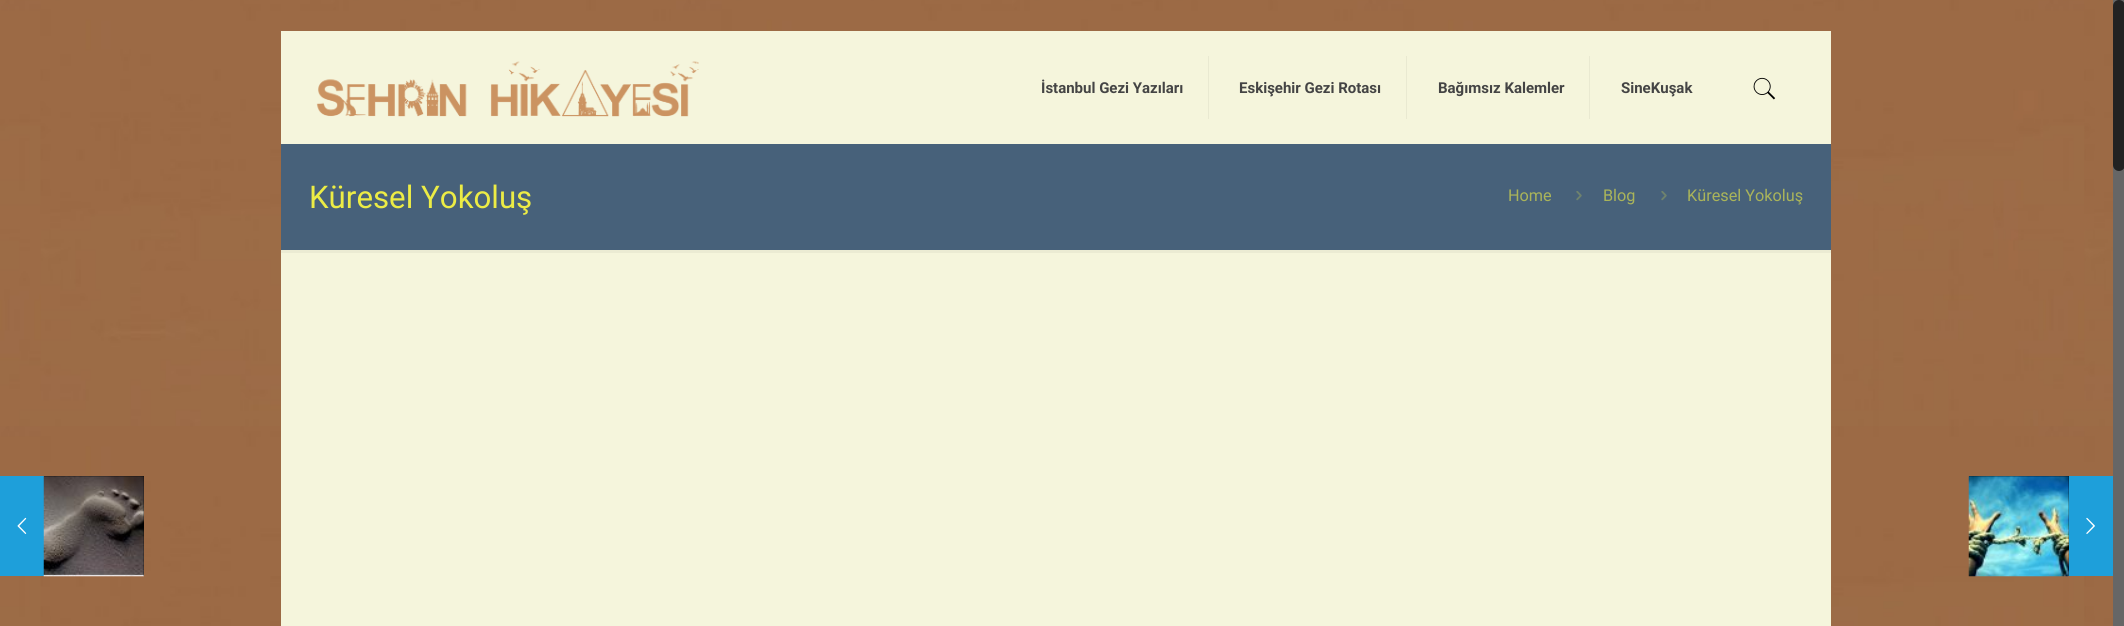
import math
import cairo


def use_color(cr, r, g, b):
  cr.set_source_rgb(r / 255, g / 255, b / 255)

def text(cr, x, y, s, family, size, color, bold=False, italic=False):
  cr.select_font_face(family, cairo.FONT_SLANT_ITALIC if italic else cairo.FONT_SLANT_NORMAL, cairo.FONT_WEIGHT_BOLD if bold else cairo.FONT_WEIGHT_NORMAL)
  cr.set_font_size(size)
  use_color(cr, *color)
  cr.move_to(x, y)
  cr.show_text(s)

def box(cr, x, y, w, h, *color):
  use_color(cr, *color)
  cr.rectangle(x, y, w, h)
  cr.fill()

def round_rect(cr, x, y, w, h, r):
  cr.new_sub_path()
  for i, (u, v) in enumerate([(x + w - r, y + h - r), (x + r, y + h - r), (x + r, y + r), (x + w - r, y + r)]):
    cr.arc(u, v, r, i * math.pi / 2, (i + 1) * math.pi / 2)
  cr.close_path()

def picture(cr, path, x, y, w, h):
  cr.save()
  cr.set_source_surface(cairo.ImageSurface.create_from_png(path), x, y)
  cr.rectangle(x, y, w, h)
  cr.fill()
  cr.restore()

def draw(cr):
  use_color(cr, 255, 255, 255)
  cr.paint()
  picture(cr, "img_01.png", 0, 0, 2113, 626)
  box(cr, 281, 253, 1550, 373, 245, 245, 220)
  box(cr, 281, 144, 1550, 106, 71, 97, 122)
  box(cr, 281, 31, 1550, 113, 245, 245, 220)
  picture(cr, "img_02.png", 316, 61, 383, 56)
  box(cr, 1208, 56, 1, 63, 233, 233, 209)
  box(cr, 1406, 56, 1, 63, 233, 233, 209)
  box(cr, 1589, 56, 1, 63, 233, 233, 209)
  picture(cr, "img_03.png", 1753, 77, 23, 23)
  picture(cr, "img_04.png", 1576, 191, 6, 10)
  picture(cr, "img_04.png", 1661, 191, 6, 10)
  box(cr, 281, 250, 1550, 3, 235, 235, 211)
  box(cr, 2113, 0, 11, 626, 102, 102, 102)
  use_color(cr, 34, 34, 34)
  round_rect(cr, 2113, 0, 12, 171, 6)
  cr.fill()
  box(cr, 0, 476, 44, 100, 30, 159, 218)
  picture(cr, "img_05.png", 17, 517, 10, 17)
  box(cr, 44, 476, 100, 100, 0, 0, 0)
  picture(cr, "img_06.png", 43, 476, 101, 101)
  box(cr, 1969, 476, 100, 100, 0, 0, 0)
  picture(cr, "img_07.png", 1968, 476, 101, 101)
  box(cr, 2069, 476, 44, 100, 30, 159, 218)
  picture(cr, "img_08.png", 2086, 517, 9, 17)
  text(cr, 1041, 93, "İstanbul Gezi Yazıları", "Roboto", 15, (68, 68, 68), bold=True)
  text(cr, 1239, 93, "Eskişehir Gezi Rotası", "Roboto", 15, (68, 68, 68), bold=True)
  text(cr, 1438, 93, "Bağımsız Kalemler", "Roboto", 15, (68, 68, 68), bold=True)
  text(cr, 1621, 93, "SineKuşak", "Roboto", 15, (68, 68, 68), bold=True)
  text(cr, 309, 208, "Küresel Yokoluş", "Roboto", 31.25, (236, 236, 69))
  text(cr, 1508, 201, "Home", "Roboto", 16.25, (170, 180, 90))
  text(cr, 1603, 201, "Blog", "Roboto", 16.25, (170, 180, 90))
  text(cr, 1687, 201, "Küresel Yokoluş", "Roboto", 16.25, (170, 180, 90))


surface = cairo.ImageSurface(cairo.FORMAT_RGB24, 2124, 626)
cr = cairo.Context(surface)
options = cairo.FontOptions()
options.set_hint_metrics(cairo.HINT_METRICS_OFF)
options.set_hint_style(cairo.HINT_STYLE_NONE)
cr.set_font_options(options)
cr.set_miter_limit(4)
draw(cr)
surface.write_to_png("out.png")
